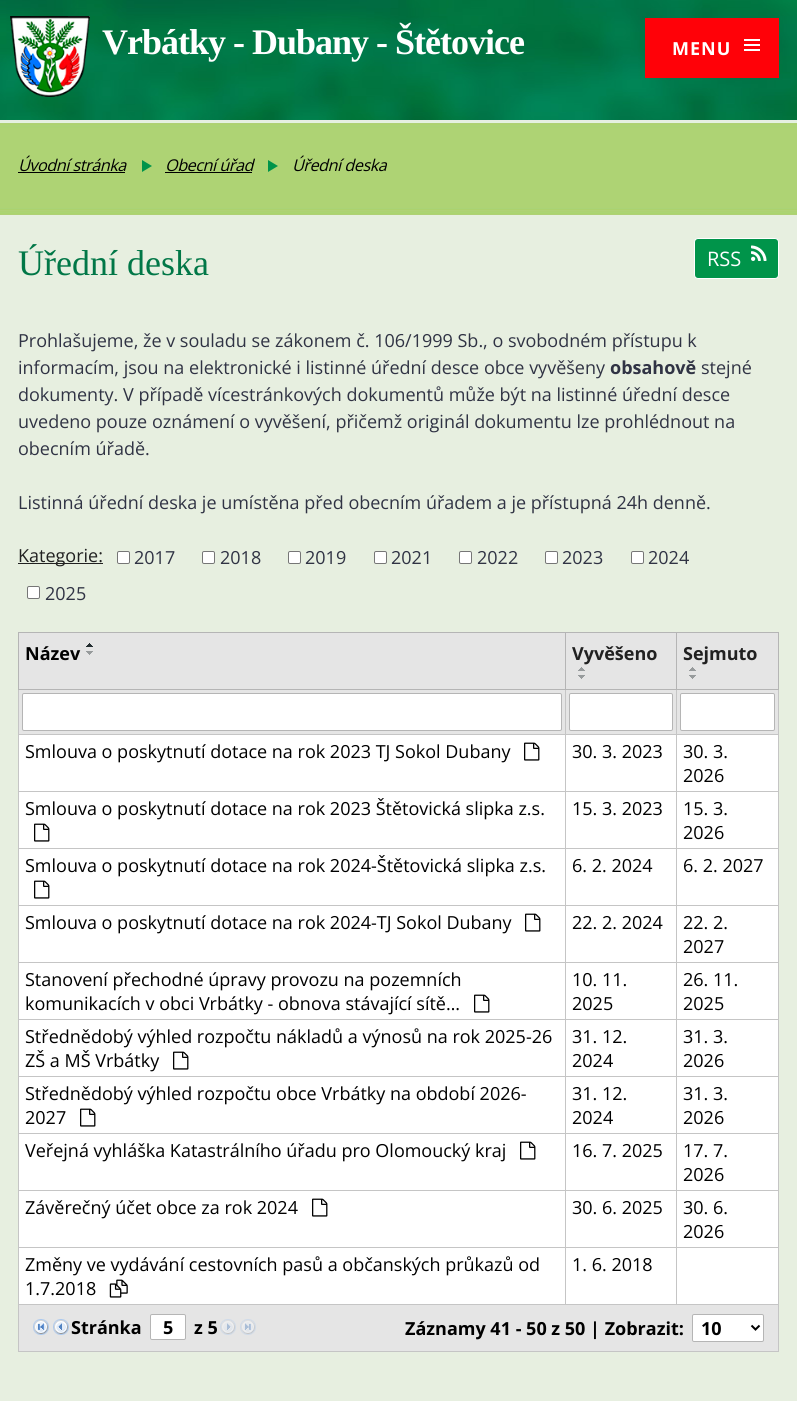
import math
import cairo


def use_color(cr, r, g, b):
  cr.set_source_rgb(r / 255, g / 255, b / 255)

def text(cr, x, y, s, family, size, color, bold=False, italic=False):
  cr.select_font_face(family, cairo.FONT_SLANT_ITALIC if italic else cairo.FONT_SLANT_NORMAL, cairo.FONT_WEIGHT_BOLD if bold else cairo.FONT_WEIGHT_NORMAL)
  cr.set_font_size(size)
  use_color(cr, *color)
  cr.move_to(x, y)
  cr.show_text(s)

def spaced_text(cr, x, y, s, letter, word):
  cr.move_to(x, y)
  for ch in s:
    cr.show_text(ch)
    cr.rel_move_to(letter + word * (ch == ' '), 0)

def box(cr, x, y, w, h, *color):
  use_color(cr, *color)
  cr.rectangle(x, y, w, h)
  cr.fill()

def round_rect(cr, x, y, w, h, r):
  cr.new_sub_path()
  for i, (u, v) in enumerate([(x + w - r, y + h - r), (x + r, y + h - r), (x + r, y + r), (x + w - r, y + r)]):
    cr.arc(u, v, r, i * math.pi / 2, (i + 1) * math.pi / 2)
  cr.close_path()

def picture(cr, path, x, y, w, h):
  cr.save()
  cr.set_source_surface(cairo.ImageSurface.create_from_png(path), x, y)
  cr.rectangle(x, y, w, h)
  cr.fill()
  cr.restore()

def draw(cr):
  use_color(cr, 231, 239, 224)
  cr.paint()
  picture(cr, "img_01.png", 0, 0, 797, 215)
  picture(cr, "img_02.png", 10, 16, 80, 81)
  box(cr, 645, 18, 134, 60, 255, 1, 8)
  picture(cr, "img_03.png", 744, 39, 16, 12)
  box(cr, 18, 172, 107, 1, 0, 0, 0)
  picture(cr, "img_04.png", 142, 160, 10, 12)
  box(cr, 165, 172, 87, 1, 0, 0, 0)
  picture(cr, "img_04.png", 268, 160, 10, 12)
  use_color(cr, 0, 148, 74)
  round_rect(cr, 694.5, 238.5, 84, 40, 3.5)
  cr.fill_preserve()
  use_color(cr, 255, 255, 255)
  cr.set_line_width(1)
  cr.stroke()
  picture(cr, "img_05.png", 751, 245, 16, 16)
  box(cr, 18, 563, 85, 1, 33, 33, 33)
  use_color(cr, 255, 255, 255)
  round_rect(cr, 117.5, 551.5, 12, 12, 1.5)
  cr.fill_preserve()
  use_color(cr, 118, 118, 118)
  cr.stroke()
  use_color(cr, 255, 255, 255)
  round_rect(cr, 202.5, 551.5, 12, 12, 1.5)
  cr.fill_preserve()
  use_color(cr, 118, 118, 118)
  cr.stroke()
  use_color(cr, 255, 255, 255)
  round_rect(cr, 288.5, 551.5, 12, 12, 1.5)
  cr.fill_preserve()
  use_color(cr, 118, 118, 118)
  cr.stroke()
  use_color(cr, 255, 255, 255)
  round_rect(cr, 374.5, 551.5, 12, 12, 1.5)
  cr.fill_preserve()
  use_color(cr, 118, 118, 118)
  cr.stroke()
  use_color(cr, 255, 255, 255)
  round_rect(cr, 459.5, 551.5, 12, 12, 1.5)
  cr.fill_preserve()
  use_color(cr, 118, 118, 118)
  cr.stroke()
  use_color(cr, 255, 255, 255)
  round_rect(cr, 545.5, 551.5, 12, 12, 1.5)
  cr.fill_preserve()
  use_color(cr, 118, 118, 118)
  cr.stroke()
  use_color(cr, 255, 255, 255)
  round_rect(cr, 631.5, 551.5, 12, 12, 1.5)
  cr.fill_preserve()
  use_color(cr, 118, 118, 118)
  cr.stroke()
  use_color(cr, 255, 255, 255)
  round_rect(cr, 27.5, 586.5, 12, 12, 1.5)
  cr.fill_preserve()
  use_color(cr, 118, 118, 118)
  cr.stroke()
  box(cr, 19, 633, 546, 56, 229, 229, 229)
  box(cr, 676, 632, 103, 1, 181, 181, 181)
  box(cr, 676, 734, 103, 1, 197, 197, 197)
  box(cr, 676, 791, 103, 1, 197, 197, 197)
  box(cr, 676, 848, 103, 1, 197, 197, 197)
  box(cr, 676, 905, 103, 1, 197, 197, 197)
  box(cr, 676, 962, 103, 1, 197, 197, 197)
  box(cr, 676, 1019, 103, 1, 197, 197, 197)
  box(cr, 676, 1076, 103, 1, 197, 197, 197)
  box(cr, 676, 1133, 103, 1, 197, 197, 197)
  box(cr, 676, 1190, 103, 1, 197, 197, 197)
  box(cr, 676, 1247, 103, 1, 197, 197, 197)
  box(cr, 778, 1247, 1, 58, 197, 197, 197)
  box(cr, 778, 1190, 1, 58, 197, 197, 197)
  box(cr, 778, 1133, 1, 58, 197, 197, 197)
  box(cr, 778, 1076, 1, 58, 197, 197, 197)
  box(cr, 778, 1019, 1, 58, 197, 197, 197)
  box(cr, 778, 962, 1, 58, 197, 197, 197)
  box(cr, 778, 905, 1, 58, 197, 197, 197)
  box(cr, 778, 848, 1, 58, 197, 197, 197)
  box(cr, 778, 791, 1, 58, 197, 197, 197)
  box(cr, 778, 689, 1, 103, 197, 197, 197)
  box(cr, 778, 632, 1, 58, 181, 181, 181)
  box(cr, 19, 690, 759, 44, 229, 229, 229)
  box(cr, 19, 735, 759, 56, 255, 255, 255)
  box(cr, 19, 792, 759, 56, 255, 255, 255)
  box(cr, 19, 849, 759, 56, 255, 255, 255)
  box(cr, 19, 906, 759, 56, 255, 255, 255)
  box(cr, 19, 963, 759, 56, 255, 255, 255)
  box(cr, 19, 1020, 759, 56, 255, 255, 255)
  box(cr, 19, 1077, 759, 56, 255, 255, 255)
  box(cr, 19, 1134, 759, 56, 255, 255, 255)
  box(cr, 19, 1191, 759, 56, 255, 255, 255)
  box(cr, 19, 1248, 759, 56, 255, 255, 255)
  box(cr, 676, 1304, 103, 1, 197, 197, 197)
  box(cr, 676, 1247, 1, 58, 197, 197, 197)
  box(cr, 565, 1247, 112, 1, 197, 197, 197)
  box(cr, 676, 1190, 1, 58, 197, 197, 197)
  box(cr, 565, 1190, 112, 1, 197, 197, 197)
  box(cr, 676, 1133, 1, 58, 197, 197, 197)
  box(cr, 565, 1133, 112, 1, 197, 197, 197)
  box(cr, 676, 1076, 1, 58, 197, 197, 197)
  box(cr, 565, 1076, 112, 1, 197, 197, 197)
  box(cr, 676, 1019, 1, 58, 197, 197, 197)
  box(cr, 565, 1019, 112, 1, 197, 197, 197)
  box(cr, 676, 962, 1, 58, 197, 197, 197)
  box(cr, 565, 962, 112, 1, 197, 197, 197)
  box(cr, 676, 905, 1, 58, 197, 197, 197)
  box(cr, 565, 905, 112, 1, 197, 197, 197)
  box(cr, 676, 848, 1, 58, 197, 197, 197)
  box(cr, 565, 848, 112, 1, 197, 197, 197)
  box(cr, 676, 791, 1, 58, 197, 197, 197)
  box(cr, 565, 791, 112, 1, 197, 197, 197)
  box(cr, 676, 734, 1, 58, 197, 197, 197)
  box(cr, 565, 734, 112, 1, 197, 197, 197)
  box(cr, 676, 689, 1, 46, 197, 197, 197)
  box(cr, 676, 689, 103, 1, 181, 181, 181)
  box(cr, 676, 632, 1, 58, 181, 181, 181)
  box(cr, 565, 632, 112, 1, 181, 181, 181)
  box(cr, 565, 1304, 112, 1, 197, 197, 197)
  box(cr, 565, 1247, 1, 58, 197, 197, 197)
  box(cr, 18, 1247, 548, 1, 197, 197, 197)
  box(cr, 565, 1190, 1, 58, 197, 197, 197)
  box(cr, 18, 1190, 548, 1, 197, 197, 197)
  box(cr, 565, 1133, 1, 58, 197, 197, 197)
  box(cr, 18, 1133, 548, 1, 197, 197, 197)
  box(cr, 565, 1076, 1, 58, 197, 197, 197)
  box(cr, 18, 1076, 548, 1, 197, 197, 197)
  box(cr, 565, 1019, 1, 58, 197, 197, 197)
  box(cr, 18, 1019, 548, 1, 197, 197, 197)
  box(cr, 565, 962, 1, 58, 197, 197, 197)
  box(cr, 18, 962, 548, 1, 197, 197, 197)
  box(cr, 565, 905, 1, 58, 197, 197, 197)
  box(cr, 18, 905, 548, 1, 197, 197, 197)
  box(cr, 565, 848, 1, 58, 197, 197, 197)
  box(cr, 18, 848, 548, 1, 197, 197, 197)
  box(cr, 565, 791, 1, 58, 197, 197, 197)
  box(cr, 18, 791, 548, 1, 197, 197, 197)
  box(cr, 565, 734, 1, 58, 197, 197, 197)
  box(cr, 18, 734, 548, 1, 197, 197, 197)
  box(cr, 565, 689, 1, 46, 197, 197, 197)
  box(cr, 565, 689, 112, 1, 181, 181, 181)
  box(cr, 565, 632, 1, 58, 181, 181, 181)
  box(cr, 18, 632, 548, 1, 181, 181, 181)
  box(cr, 18, 1304, 548, 1, 197, 197, 197)
  box(cr, 18, 1247, 1, 58, 197, 197, 197)
  box(cr, 18, 1190, 1, 58, 197, 197, 197)
  box(cr, 18, 1133, 1, 58, 197, 197, 197)
  box(cr, 18, 1076, 1, 58, 197, 197, 197)
  box(cr, 18, 1019, 1, 58, 197, 197, 197)
  box(cr, 18, 962, 1, 58, 197, 197, 197)
  box(cr, 18, 905, 1, 58, 197, 197, 197)
  box(cr, 18, 848, 1, 58, 197, 197, 197)
  box(cr, 18, 791, 1, 58, 197, 197, 197)
  box(cr, 18, 689, 1, 103, 197, 197, 197)
  box(cr, 18, 689, 548, 1, 181, 181, 181)
  box(cr, 18, 632, 1, 58, 181, 181, 181)
  picture(cr, "img_06.png", 86, 643, 7, 4)
  picture(cr, "img_07.png", 86, 651, 7, 4)
  box(cr, 566, 633, 110, 56, 229, 229, 229)
  picture(cr, "img_08.png", 578, 667, 7, 4)
  picture(cr, "img_07.png", 578, 675, 7, 4)
  box(cr, 677, 633, 101, 56, 229, 229, 229)
  picture(cr, "img_08.png", 689, 667, 7, 4)
  picture(cr, "img_07.png", 689, 675, 7, 4)
  use_color(cr, 255, 255, 255)
  round_rect(cr, 22.5, 693.5, 539, 37, 1.5)
  cr.fill_preserve()
  use_color(cr, 181, 181, 181)
  cr.stroke()
  use_color(cr, 255, 255, 255)
  round_rect(cr, 569.5, 693.5, 103, 37, 1.5)
  cr.fill_preserve()
  use_color(cr, 181, 181, 181)
  cr.stroke()
  use_color(cr, 255, 255, 255)
  round_rect(cr, 680.5, 693.5, 94, 37, 1.5)
  cr.fill_preserve()
  use_color(cr, 181, 181, 181)
  cr.stroke()
  picture(cr, "img_09.png", 524, 742, 16, 19)
  picture(cr, "img_09.png", 34, 823, 16, 19)
  picture(cr, "img_09.png", 34, 880, 16, 19)
  picture(cr, "img_09.png", 525, 913, 16, 19)
  picture(cr, "img_09.png", 474, 994, 16, 19)
  picture(cr, "img_09.png", 173, 1051, 16, 19)
  picture(cr, "img_09.png", 80, 1108, 16, 19)
  picture(cr, "img_09.png", 520, 1141, 16, 19)
  picture(cr, "img_09.png", 312, 1198, 16, 19)
  picture(cr, "img_10.png", 109, 1279, 19, 19)
  box(cr, 19, 1305, 759, 46, 229, 229, 229)
  box(cr, 778, 1304, 1, 48, 197, 197, 197)
  box(cr, 18, 1351, 761, 1, 197, 197, 197)
  box(cr, 18, 1304, 1, 48, 197, 197, 197)
  picture(cr, "img_11.png", 33, 1319, 16, 16)
  picture(cr, "img_12.png", 53, 1319, 16, 16)
  use_color(cr, 255, 255, 255)
  round_rect(cr, 150.5, 1314.5, 35, 25, 1.5)
  cr.fill_preserve()
  use_color(cr, 181, 181, 181)
  cr.stroke()
  picture(cr, "img_13.png", 220, 1319, 16, 16)
  picture(cr, "img_14.png", 240, 1319, 16, 16)
  use_color(cr, 255, 255, 255)
  round_rect(cr, 692.5, 1314.5, 71, 27, 1.5)
  cr.fill_preserve()
  use_color(cr, 181, 181, 181)
  cr.stroke()
  cr.new_path()
  cr.move_to(751.5, 1325.5)
  cr.line_to(755.5, 1329.5)
  cr.line_to(759.5, 1325.5)
  use_color(cr, 0, 0, 0)
  cr.set_line_width(2)
  cr.stroke()
  cr.select_font_face("Liberation Serif", cairo.FONT_SLANT_NORMAL, cairo.FONT_WEIGHT_BOLD)
  cr.set_font_size(36)
  use_color(cr, 255, 255, 255)
  spaced_text(cr, 102, 54, "Vrbátky - Dubany - Štětovice", -1, 0)
  cr.select_font_face("Open Sans", cairo.FONT_SLANT_NORMAL, cairo.FONT_WEIGHT_BOLD)
  cr.set_font_size(18)
  spaced_text(cr, 672, 55, "MENU", 1, 0)
  cr.select_font_face("Open Sans", cairo.FONT_SLANT_ITALIC)
  cr.set_font_size(16.25)
  use_color(cr, 0, 0, 0)
  spaced_text(cr, 18, 171, "Úvodní stránka", -0.5, 0)
  spaced_text(cr, 165, 171, "Obecní úřad", -0.5, 0)
  spaced_text(cr, 292, 171, "Úřední deska", -0.5, 0)
  text(cr, 18, 275, "Úřední deska", "Liberation Serif", 36, (1, 119, 71))
  text(cr, 707, 266, "RSS", "Open Sans", 20, (255, 255, 255))
  text(cr, 18, 347, "Prohlašujeme, že v souladu se zákonem č. 106/1999 Sb., o svobodném přístupu k", "Open Sans", 18, (48, 51, 68))
  text(cr, 18, 374, "informacím, jsou na elektronické i listinné úřední desce obce vyvěšeny", "Open Sans", 18, (48, 51, 68))
  text(cr, 610, 374, "obsahově", "Open Sans", 18, (48, 51, 68), bold=True)
  text(cr, 701, 374, "stejné", "Open Sans", 18, (48, 51, 68))
  text(cr, 18, 401, "dokumenty. V případě vícestránkových dokumentů může být na listinné úřední desce", "Open Sans", 18, (48, 51, 68))
  text(cr, 18, 428, "uvedeno pouze oznámení o vyvěšení, přičemž originál dokumentu lze prohlédnout na", "Open Sans", 18, (48, 51, 68))
  text(cr, 18, 455, "obecním úřadě.", "Open Sans", 18, (48, 51, 68))
  text(cr, 18, 509, "Listinná úřední deska je umístěna před obecním úřadem a je přístupná 24h denně.", "Open Sans", 18, (48, 51, 68))
  text(cr, 18, 562, "Kategorie:", "Open Sans", 18, (33, 33, 33))
  text(cr, 134, 564, "2017", "Open Sans", 18, (48, 51, 68))
  text(cr, 220, 564, "2018", "Open Sans", 18, (48, 51, 68))
  text(cr, 305, 564, "2019", "Open Sans", 18, (48, 51, 68))
  text(cr, 391, 564, "2021", "Open Sans", 18, (48, 51, 68))
  text(cr, 477, 564, "2022", "Open Sans", 18, (48, 51, 68))
  text(cr, 562, 564, "2023", "Open Sans", 18, (48, 51, 68))
  text(cr, 648, 564, "2024", "Open Sans", 18, (48, 51, 68))
  text(cr, 45, 600, "2025", "Open Sans", 18, (48, 51, 68))
  text(cr, 25, 660, "Název", "Open Sans", 18, (0, 0, 0), bold=True)
  text(cr, 572, 660, "Vyvěšeno", "Open Sans", 18, (33, 33, 33), bold=True)
  text(cr, 683, 660, "Sejmuto", "Open Sans", 18, (33, 33, 33), bold=True)
  text(cr, 25, 758, "Smlouva o poskytnutí dotace na rok 2023 TJ Sokol Dubany", "Open Sans", 18, (0, 0, 0))
  text(cr, 572, 758, "30. 3. 2023", "Open Sans", 18, (0, 0, 0))
  text(cr, 683, 758, "30. 3.", "Open Sans", 18, (0, 0, 0))
  text(cr, 683, 782, "2026", "Open Sans", 18, (0, 0, 0))
  text(cr, 25, 815, "Smlouva o poskytnutí dotace na rok 2023 Štětovická slipka z.s.", "Open Sans", 18, (0, 0, 0))
  text(cr, 572, 815, "15. 3. 2023", "Open Sans", 18, (0, 0, 0))
  text(cr, 683, 815, "15. 3.", "Open Sans", 18, (0, 0, 0))
  text(cr, 683, 839, "2026", "Open Sans", 18, (0, 0, 0))
  text(cr, 25, 872, "Smlouva o poskytnutí dotace na rok 2024-Štětovická slipka z.s.", "Open Sans", 18, (0, 0, 0))
  text(cr, 572, 872, "6. 2. 2024", "Open Sans", 18, (0, 0, 0))
  text(cr, 683, 872, "6. 2. 2027", "Open Sans", 18, (0, 0, 0))
  text(cr, 25, 929, "Smlouva o poskytnutí dotace na rok 2024-TJ Sokol Dubany", "Open Sans", 18, (0, 0, 0))
  text(cr, 572, 929, "22. 2. 2024", "Open Sans", 18, (0, 0, 0))
  text(cr, 683, 929, "22. 2.", "Open Sans", 18, (0, 0, 0))
  text(cr, 683, 953, "2027", "Open Sans", 18, (0, 0, 0))
  text(cr, 25, 986, "Stanovení přechodné úpravy provozu na pozemních", "Open Sans", 18, (0, 0, 0))
  text(cr, 25, 1010, "komunikacích v obci Vrbátky - obnova stávající sítě…", "Open Sans", 18, (0, 0, 0))
  text(cr, 572, 986, "10. 11.", "Open Sans", 18, (0, 0, 0))
  text(cr, 572, 1010, "2025", "Open Sans", 18, (0, 0, 0))
  text(cr, 683, 986, "26. 11.", "Open Sans", 18, (0, 0, 0))
  text(cr, 683, 1010, "2025", "Open Sans", 18, (0, 0, 0))
  text(cr, 25, 1043, "Střednědobý výhled rozpočtu nákladů a výnosů na rok 2025-26", "Open Sans", 18, (0, 0, 0))
  text(cr, 25, 1067, "ZŠ a MŠ Vrbátky", "Open Sans", 18, (0, 0, 0))
  text(cr, 572, 1043, "31. 12.", "Open Sans", 18, (0, 0, 0))
  text(cr, 572, 1067, "2024", "Open Sans", 18, (0, 0, 0))
  text(cr, 683, 1043, "31. 3.", "Open Sans", 18, (0, 0, 0))
  text(cr, 683, 1067, "2026", "Open Sans", 18, (0, 0, 0))
  text(cr, 25, 1100, "Střednědobý výhled rozpočtu obce Vrbátky na období 2026-", "Open Sans", 18, (0, 0, 0))
  text(cr, 25, 1124, "2027", "Open Sans", 18, (0, 0, 0))
  text(cr, 572, 1100, "31. 12.", "Open Sans", 18, (0, 0, 0))
  text(cr, 572, 1124, "2024", "Open Sans", 18, (0, 0, 0))
  text(cr, 683, 1100, "31. 3.", "Open Sans", 18, (0, 0, 0))
  text(cr, 683, 1124, "2026", "Open Sans", 18, (0, 0, 0))
  text(cr, 25, 1157, "Veřejná vyhláška Katastrálního úřadu pro Olomoucký kraj", "Open Sans", 18, (0, 0, 0))
  text(cr, 572, 1157, "16. 7. 2025", "Open Sans", 18, (0, 0, 0))
  text(cr, 683, 1157, "17. 7.", "Open Sans", 18, (0, 0, 0))
  text(cr, 683, 1181, "2026", "Open Sans", 18, (0, 0, 0))
  text(cr, 25, 1214, "Závěrečný účet obce za rok 2024", "Open Sans", 18, (0, 0, 0))
  text(cr, 572, 1214, "30. 6. 2025", "Open Sans", 18, (0, 0, 0))
  text(cr, 683, 1214, "30. 6.", "Open Sans", 18, (0, 0, 0))
  text(cr, 683, 1238, "2026", "Open Sans", 18, (0, 0, 0))
  text(cr, 25, 1271, "Změny ve vydávání cestovních pasů a občanských průkazů od", "Open Sans", 18, (0, 0, 0))
  text(cr, 25, 1295, "1.7.2018", "Open Sans", 18, (0, 0, 0))
  text(cr, 572, 1271, "1. 6. 2018", "Open Sans", 18, (0, 0, 0))
  text(cr, 71, 1334, "Stránka", "Open Sans", 18, (0, 0, 0), bold=True)
  text(cr, 163, 1334, "5", "Open Sans", 18, (0, 0, 0), bold=True)
  text(cr, 194, 1334, "z 5", "Open Sans", 18, (0, 0, 0), bold=True)
  text(cr, 405, 1335, "Záznamy 41 - 50 z 50 | Zobrazit:", "Open Sans", 18, (0, 0, 0), bold=True)
  text(cr, 701, 1335, "10", "Open Sans", 18, (0, 0, 0), bold=True)


surface = cairo.ImageSurface(cairo.FORMAT_RGB24, 797, 1401)
cr = cairo.Context(surface)
options = cairo.FontOptions()
options.set_hint_metrics(cairo.HINT_METRICS_OFF)
options.set_hint_style(cairo.HINT_STYLE_NONE)
cr.set_font_options(options)
cr.set_miter_limit(4)
draw(cr)
surface.write_to_png("out.png")
